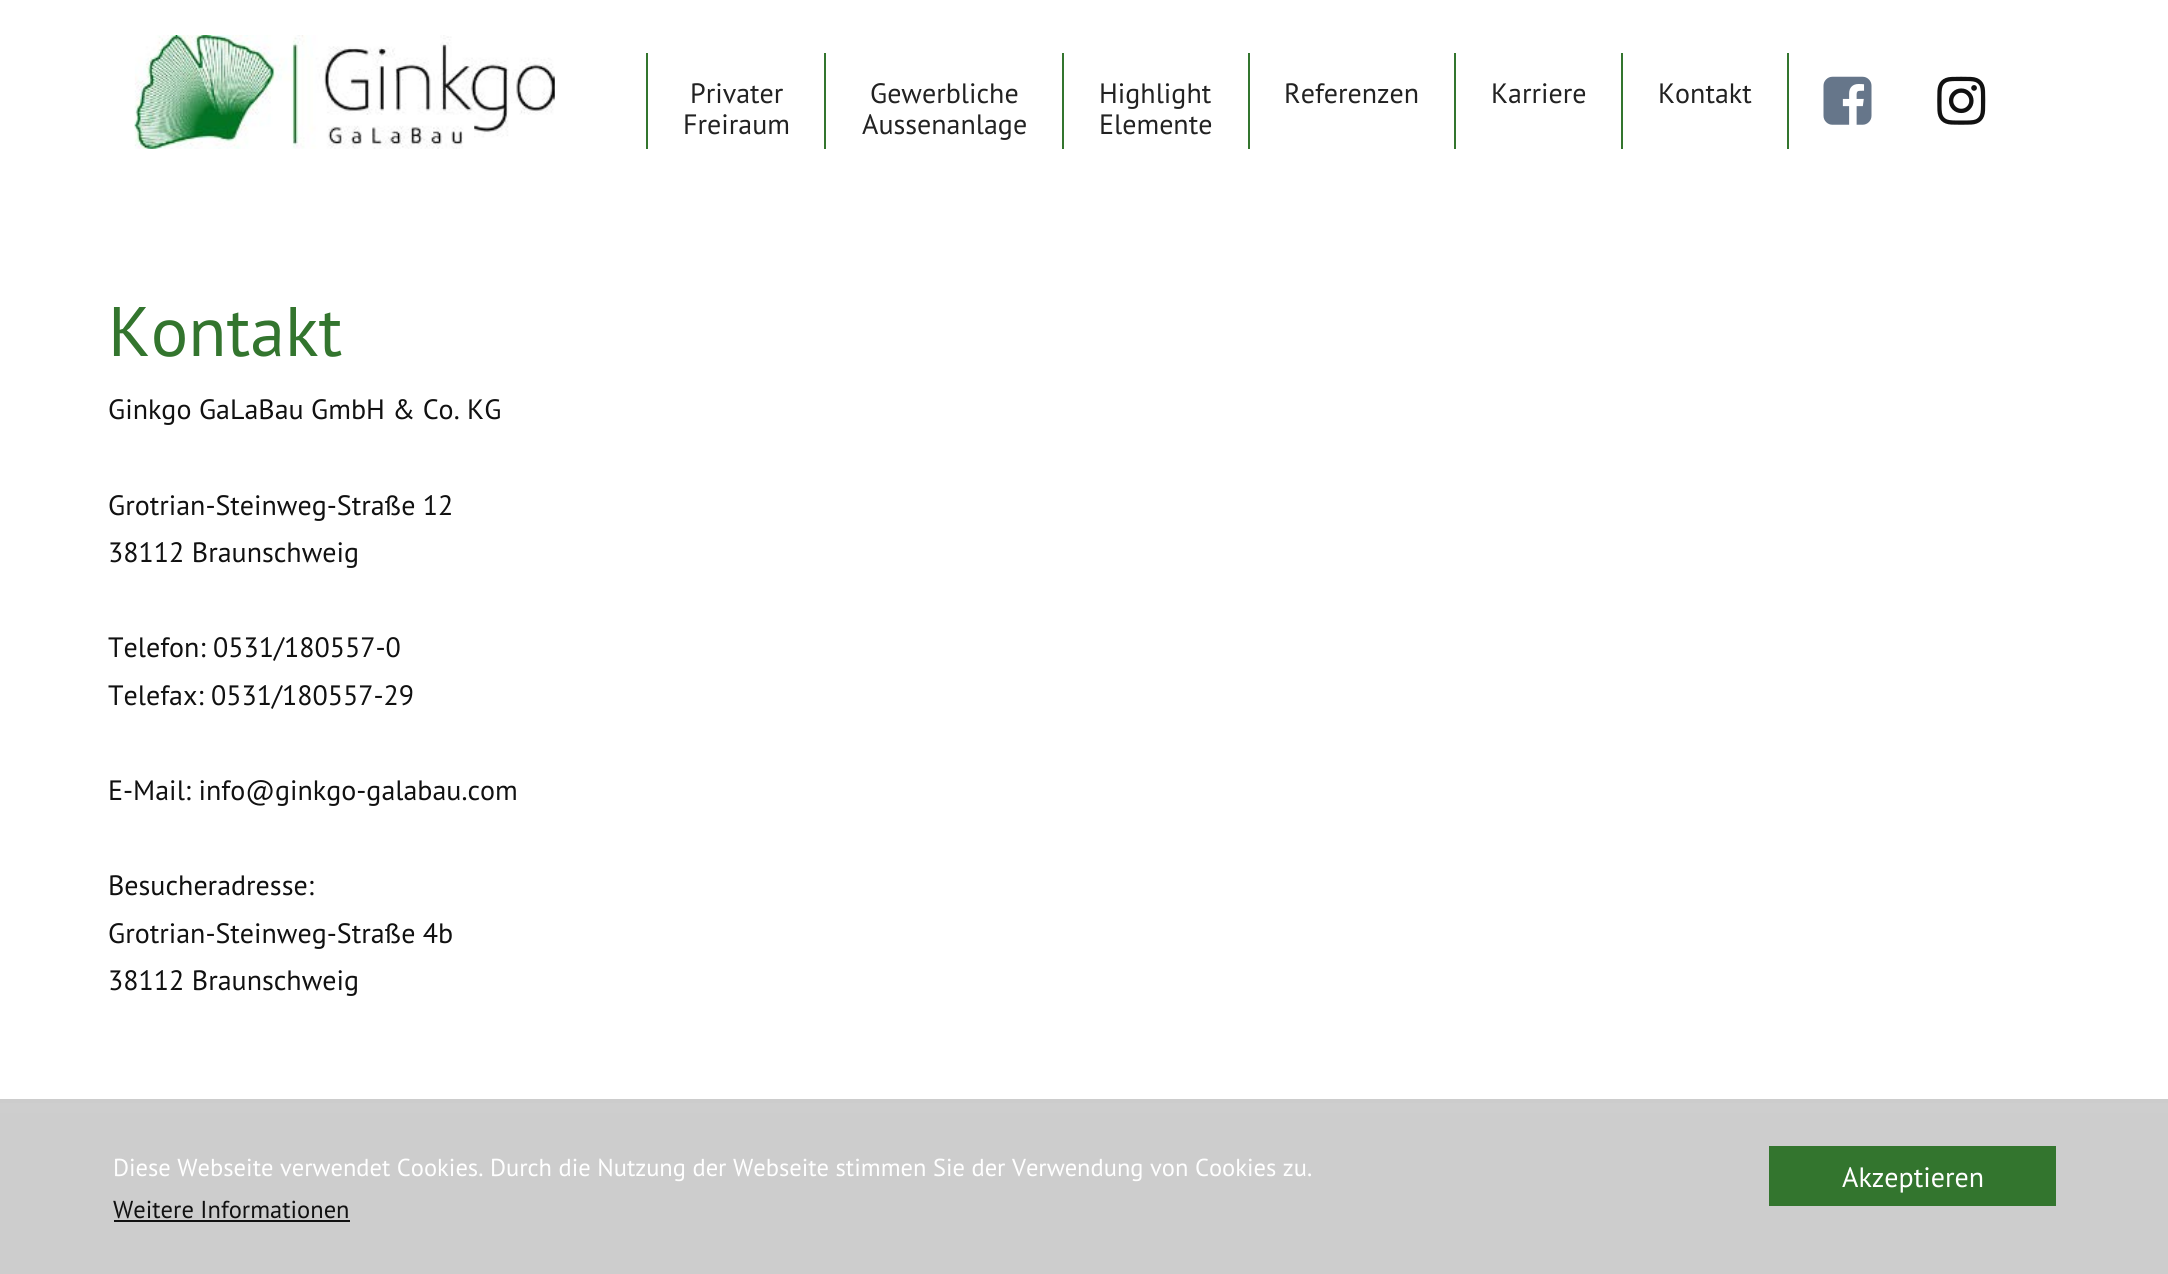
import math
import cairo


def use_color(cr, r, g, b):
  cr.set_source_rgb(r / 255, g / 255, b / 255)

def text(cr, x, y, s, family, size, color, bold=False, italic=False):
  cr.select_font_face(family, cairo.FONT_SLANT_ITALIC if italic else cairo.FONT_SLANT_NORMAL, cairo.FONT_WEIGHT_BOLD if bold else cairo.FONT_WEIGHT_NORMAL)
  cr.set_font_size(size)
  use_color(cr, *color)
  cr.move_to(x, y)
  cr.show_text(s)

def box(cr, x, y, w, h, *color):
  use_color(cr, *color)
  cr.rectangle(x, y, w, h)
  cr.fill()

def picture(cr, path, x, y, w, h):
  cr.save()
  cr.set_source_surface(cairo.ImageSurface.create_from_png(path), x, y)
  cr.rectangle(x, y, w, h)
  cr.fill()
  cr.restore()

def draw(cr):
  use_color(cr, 255, 255, 255)
  cr.paint()
  box(cr, 0, 1103, 2168, 10, 206, 206, 206)
  picture(cr, "img_01.png", 134, 35, 421, 114)
  box(cr, 646, 53, 2, 96, 51, 117, 46)
  box(cr, 824, 53, 2, 96, 51, 117, 46)
  box(cr, 1062, 53, 2, 96, 51, 117, 46)
  box(cr, 1248, 53, 2, 96, 51, 117, 46)
  box(cr, 1454, 53, 2, 96, 51, 117, 46)
  box(cr, 1621, 53, 2, 96, 51, 117, 46)
  box(cr, 1787, 53, 2, 96, 51, 117, 46)
  picture(cr, "img_02.png", 1823, 76, 49, 49)
  picture(cr, "img_03.png", 1937, 76, 49, 49)
  box(cr, 0, 1113, 2168, 161, 205, 205, 205)
  box(cr, 0, 1099, 2168, 4, 204, 204, 204)
  box(cr, 1769, 1146, 287, 60, 51, 117, 46)
  box(cr, 114, 1220, 236, 2, 17, 17, 17)
  text(cr, 690, 103, "Privater", "PT Sans", 28, (34, 34, 34))
  text(cr, 683, 134, "Freiraum", "PT Sans", 28, (34, 34, 34))
  text(cr, 870, 103, "Gewerbliche", "PT Sans", 28, (34, 34, 34))
  text(cr, 862, 134, "Aussenanlage", "PT Sans", 28, (34, 34, 34))
  text(cr, 1099, 103, "Highlight", "PT Sans", 28, (34, 34, 34))
  text(cr, 1099, 134, "Elemente", "PT Sans", 28, (34, 34, 34))
  text(cr, 1284, 103, "Referenzen", "PT Sans", 28, (34, 34, 34))
  text(cr, 1491, 103, "Karriere", "PT Sans", 28, (34, 34, 34))
  text(cr, 1658, 103, "Kontakt", "PT Sans", 28, (34, 34, 34))
  text(cr, 108, 356, "Kontakt", "PT Sans", 70, (51, 117, 46))
  text(cr, 108, 419, "Ginkgo GaLaBau GmbH & Co. KG", "PT Sans", 28, (17, 17, 17))
  text(cr, 108, 515, "Grotrian-Steinweg-Straße 12", "PT Sans", 28, (17, 17, 17))
  text(cr, 108, 562, "38112 Braunschweig", "PT Sans", 28, (17, 17, 17))
  text(cr, 108, 657, "Telefon: 0531/180557-0", "PT Sans", 28, (17, 17, 17))
  text(cr, 108, 705, "Telefax: 0531/180557-29", "PT Sans", 28, (17, 17, 17))
  text(cr, 108, 800, "E-Mail: info@ginkgo-galabau.com", "PT Sans", 28, (17, 17, 17))
  text(cr, 108, 895, "Besucheradresse:", "PT Sans", 28, (17, 17, 17))
  text(cr, 108, 943, "Grotrian-Steinweg-Straße 4b", "PT Sans", 28, (17, 17, 17))
  text(cr, 108, 990, "38112 Braunschweig", "PT Sans", 28, (17, 17, 17))
  text(cr, 113, 1176, "Diese Webseite verwendet Cookies. Durch die Nutzung der Webseite stimmen Sie der Verwendung von Cookies zu.", "PT Sans", 24.5, (255, 255, 255))
  text(cr, 1842, 1187, "Akzeptieren", "PT Sans", 28, (255, 255, 255))
  text(cr, 113, 1218, "Weitere Informationen", "PT Sans", 24.5, (17, 17, 17))


surface = cairo.ImageSurface(cairo.FORMAT_RGB24, 2168, 1274)
cr = cairo.Context(surface)
options = cairo.FontOptions()
options.set_hint_metrics(cairo.HINT_METRICS_OFF)
options.set_hint_style(cairo.HINT_STYLE_NONE)
cr.set_font_options(options)
cr.set_miter_limit(4)
draw(cr)
surface.write_to_png("out.png")
